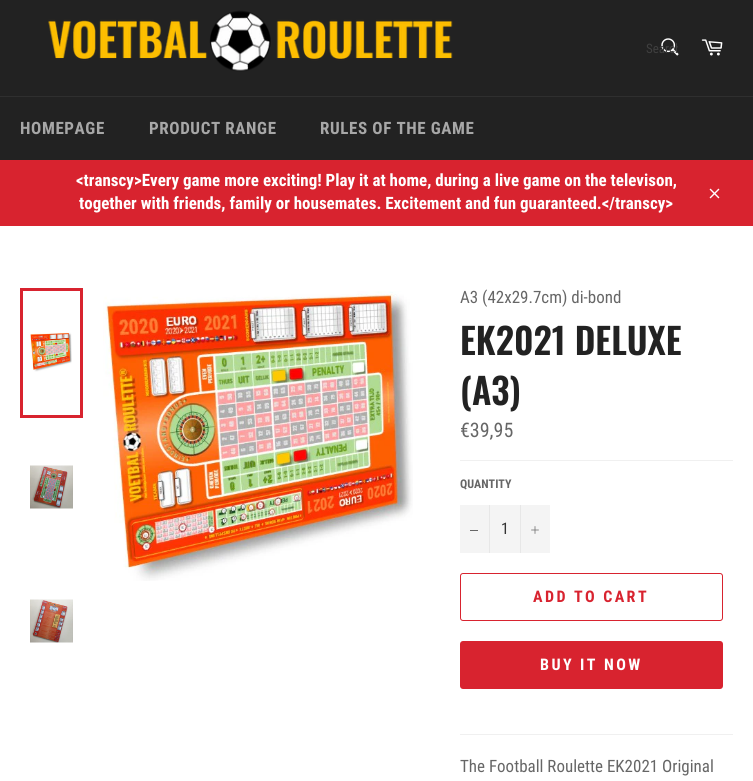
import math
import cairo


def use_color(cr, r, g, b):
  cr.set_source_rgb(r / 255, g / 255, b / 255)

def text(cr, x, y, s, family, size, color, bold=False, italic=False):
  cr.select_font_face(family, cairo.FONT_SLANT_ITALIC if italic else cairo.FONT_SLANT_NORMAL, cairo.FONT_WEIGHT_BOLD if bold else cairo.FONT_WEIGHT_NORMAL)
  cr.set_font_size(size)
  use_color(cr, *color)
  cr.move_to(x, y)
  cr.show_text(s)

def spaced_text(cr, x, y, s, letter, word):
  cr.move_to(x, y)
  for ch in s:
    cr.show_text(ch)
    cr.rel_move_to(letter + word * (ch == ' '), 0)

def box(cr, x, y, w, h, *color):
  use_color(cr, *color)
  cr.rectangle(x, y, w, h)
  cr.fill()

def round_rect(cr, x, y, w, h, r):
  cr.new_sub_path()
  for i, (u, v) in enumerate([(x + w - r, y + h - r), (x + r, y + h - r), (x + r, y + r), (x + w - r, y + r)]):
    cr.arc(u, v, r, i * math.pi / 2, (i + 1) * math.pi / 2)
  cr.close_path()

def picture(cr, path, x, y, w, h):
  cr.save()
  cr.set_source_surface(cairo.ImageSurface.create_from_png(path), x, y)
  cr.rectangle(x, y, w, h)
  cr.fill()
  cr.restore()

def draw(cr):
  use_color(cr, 34, 34, 34)
  cr.paint()
  picture(cr, "img_01.png", 48, 10, 405, 62)
  picture(cr, "img_02.png", 661, 38, 18, 18)
  picture(cr, "img_03.png", 701, 39, 22, 17)
  box(cr, 0, 96, 753, 1, 47, 47, 47)
  box(cr, 0, 160, 753, 66, 216, 35, 47)
  picture(cr, "img_04.png", 709, 188, 11, 11)
  box(cr, 0, 226, 753, 555, 255, 255, 255)
  picture(cr, "img_05.png", 30, 332, 42, 40)
  cr.rectangle(21.5, 289.5, 60, 127)
  use_color(cr, 216, 35, 47)
  cr.set_line_width(3)
  cr.stroke()
  picture(cr, "img_06.png", 30, 465, 43, 44)
  picture(cr, "img_07.png", 30, 599, 43, 44)
  picture(cr, "img_08.png", 103, 291, 310, 290)
  box(cr, 460, 460, 273, 1, 240, 240, 240)
  box(cr, 460, 505, 90, 48, 244, 244, 244)
  box(cr, 489, 505, 1, 48, 231, 231, 231)
  box(cr, 470, 530, 8, 1, 102, 102, 102)
  box(cr, 520, 505, 1, 48, 231, 231, 231)
  picture(cr, "img_09.png", 531, 526, 8, 8)
  round_rect(cr, 460.5, 573.5, 262, 47, 2.5)
  use_color(cr, 216, 35, 47)
  cr.set_line_width(1)
  cr.stroke()
  round_rect(cr, 460, 641, 263, 48, 3)
  cr.fill()
  box(cr, 460, 734, 273, 1, 240, 240, 240)
  cr.save()
  cr.rectangle(646, 41, 32, 15)
  cr.clip()
  text(cr, 646, 53, "Search", "Roboto Condensed", 13, (63, 63, 63))
  cr.restore()
  cr.select_font_face("Roboto Condensed", cairo.FONT_SLANT_NORMAL, cairo.FONT_WEIGHT_BOLD)
  cr.set_font_size(17)
  use_color(cr, 167, 167, 167)
  spaced_text(cr, 20, 134, "HOMEPAGE", 0.6, 0)
  spaced_text(cr, 149, 134, "PRODUCT RANGE", 0.6, 0)
  spaced_text(cr, 320, 134, "RULES OF THE GAME", 0.6, 0)
  text(cr, 76, 186, "<transcy>Every game more exciting! Play it at home, during a live game on the televison,", "Roboto Condensed", 17, (255, 255, 255), bold=True)
  text(cr, 79, 209, "together with friends, family or housemates. Excitement and fun guaranteed.</transcy>", "Roboto Condensed", 17, (255, 255, 255), bold=True)
  text(cr, 460, 303, "A3 (42x29.7cm) di-bond", "Roboto Condensed", 17, (102, 102, 102))
  text(cr, 460, 355, "EK2021 DELUXE", "Oswald SemiBold", 36, (34, 34, 34))
  text(cr, 460, 405, "(A3)", "Oswald SemiBold", 36, (34, 34, 34))
  text(cr, 460, 437, "€39,95", "Roboto Condensed", 20, (102, 102, 102))
  text(cr, 460, 488, "QUANTITY", "Roboto Condensed", 12, (102, 102, 102), bold=True)
  text(cr, 501, 534, "1", "Roboto Condensed", 16, (51, 51, 51))
  cr.select_font_face("Roboto Condensed", cairo.FONT_SLANT_NORMAL, cairo.FONT_WEIGHT_BOLD)
  use_color(cr, 216, 35, 47)
  spaced_text(cr, 533, 602, "ADD TO CART", 2.4, 0)
  use_color(cr, 255, 255, 255)
  spaced_text(cr, 540, 670, "BUY IT NOW", 2.4, 0)
  text(cr, 460, 772, "The Football Roulette EK2021 Original", "Roboto Condensed", 17, (102, 102, 102))


surface = cairo.ImageSurface(cairo.FORMAT_RGB24, 753, 781)
cr = cairo.Context(surface)
options = cairo.FontOptions()
options.set_hint_metrics(cairo.HINT_METRICS_OFF)
options.set_hint_style(cairo.HINT_STYLE_NONE)
cr.set_font_options(options)
cr.set_miter_limit(4)
draw(cr)
surface.write_to_png("out.png")
